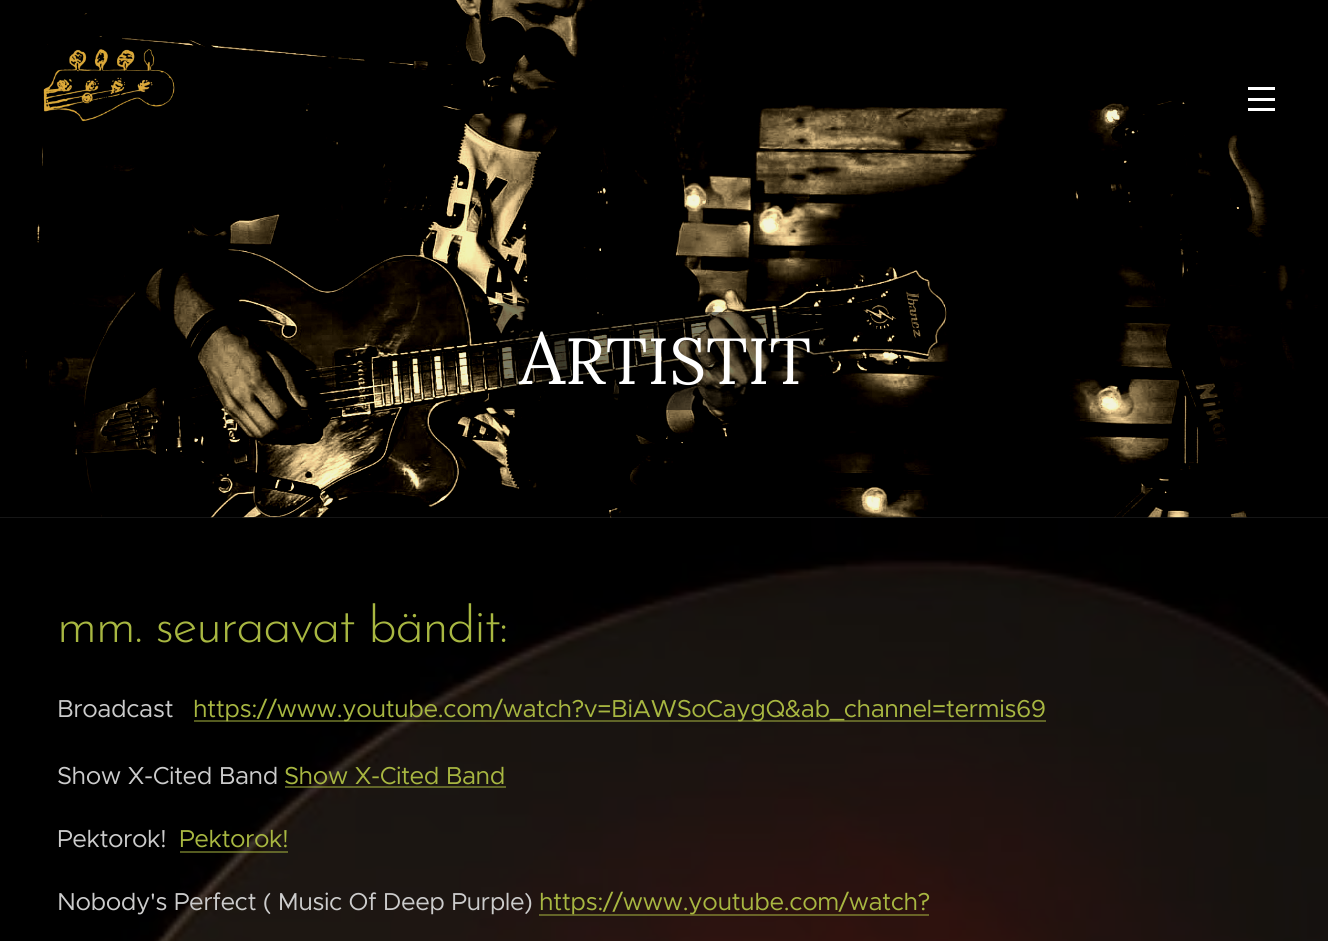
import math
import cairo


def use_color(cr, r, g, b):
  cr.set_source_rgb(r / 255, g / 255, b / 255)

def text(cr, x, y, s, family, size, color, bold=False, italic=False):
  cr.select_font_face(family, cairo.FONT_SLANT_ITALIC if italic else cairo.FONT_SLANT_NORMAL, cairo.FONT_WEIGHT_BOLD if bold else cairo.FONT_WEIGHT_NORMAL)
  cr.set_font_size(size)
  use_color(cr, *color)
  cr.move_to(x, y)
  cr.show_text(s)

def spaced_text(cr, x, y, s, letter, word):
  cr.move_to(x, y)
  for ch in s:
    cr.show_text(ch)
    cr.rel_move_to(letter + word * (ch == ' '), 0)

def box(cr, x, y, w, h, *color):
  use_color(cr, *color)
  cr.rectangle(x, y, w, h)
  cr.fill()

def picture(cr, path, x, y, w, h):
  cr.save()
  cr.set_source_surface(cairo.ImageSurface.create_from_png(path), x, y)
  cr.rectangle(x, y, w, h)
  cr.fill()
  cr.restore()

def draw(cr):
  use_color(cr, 39, 39, 39)
  cr.paint()
  picture(cr, "img_02.png", 0, 0, 1328, 518)
  picture(cr, "img_01.png", 43, 49, 132, 73)
  box(cr, 1248, 98, 27, 3, 255, 255, 255)
  box(cr, 1248, 87, 27, 3, 255, 255, 255)
  box(cr, 1248, 108, 27, 3, 255, 255, 255)
  cr.set_source_rgba(0, 0, 0, 0.5)
  cr.rectangle(497, 303, 22, 108)
  cr.fill()
  cr.rectangle(564, 330, 23, 48)
  cr.fill()
  cr.rectangle(519, 303, 45, 98)
  cr.fill()
  cr.new_path()
  cr.move_to(542, 312)
  cr.line_to(542, 410)
  cr.line_to(788, 410)
  cr.line_to(564, 410)
  cr.line_to(564, 312)
  cr.close_path()
  cr.fill()
  cr.new_path()
  cr.move_to(587, 410)
  cr.line_to(833, 410)
  cr.line_to(833, 312)
  cr.line_to(810, 312)
  cr.line_to(810, 410)
  cr.close_path()
  cr.fill()
  cr.rectangle(564, 312, 246, 98)
  cr.fill()
  picture(cr, "img_03.png", 0, 517, 1328, 424)
  cr.set_source_rgba(0.659, 0.718, 0.255, 0.5)
  cr.rectangle(194, 720, 852, 2)
  cr.fill()
  cr.rectangle(285, 786, 221, 2)
  cr.fill()
  cr.rectangle(180, 851, 108, 2)
  cr.fill()
  cr.rectangle(539, 914, 390, 2)
  cr.fill()
  text(cr, 519, 384, "A", "Lora", 73, (255, 255, 255))
  text(cr, 565, 384, "RTISTIT", "Lora", 65, (255, 255, 255))
  cr.select_font_face("Josefin Sans Light")
  cr.set_font_size(51)
  use_color(cr, 168, 183, 65)
  spaced_text(cr, 57, 642, "mm. seuraavat bändit:", -1.5, 0)
  cr.select_font_face("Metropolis")
  cr.set_font_size(24.6)
  use_color(cr, 204, 204, 204)
  spaced_text(cr, 57, 717, "Broadcast", -0.48, 0)
  use_color(cr, 168, 183, 65)
  spaced_text(cr, 193, 717, "https://www.youtube.com/watch?v=BiAWSoCaygQ&ab_channel=termis69", -0.48, 0)
  use_color(cr, 204, 204, 204)
  spaced_text(cr, 57, 784, "Show X-Cited Band", -0.48, 0)
  use_color(cr, 168, 183, 65)
  spaced_text(cr, 284, 784, "Show X-Cited Band", -0.48, 0)
  use_color(cr, 204, 204, 204)
  spaced_text(cr, 57, 847, "Pektorok!", -0.48, 0)
  use_color(cr, 168, 183, 65)
  spaced_text(cr, 179, 847, "Pektorok!", -0.48, 0)
  use_color(cr, 204, 204, 204)
  spaced_text(cr, 57, 910, "Nobody's Perfect ( Music Of Deep Purple)", -0.48, 0)
  use_color(cr, 168, 183, 65)
  spaced_text(cr, 539, 910, "https://www.youtube.com/watch?", -0.48, 0)


surface = cairo.ImageSurface(cairo.FORMAT_RGB24, 1328, 941)
cr = cairo.Context(surface)
options = cairo.FontOptions()
options.set_hint_metrics(cairo.HINT_METRICS_OFF)
options.set_hint_style(cairo.HINT_STYLE_NONE)
cr.set_font_options(options)
cr.set_miter_limit(4)
draw(cr)
surface.write_to_png("out.png")
